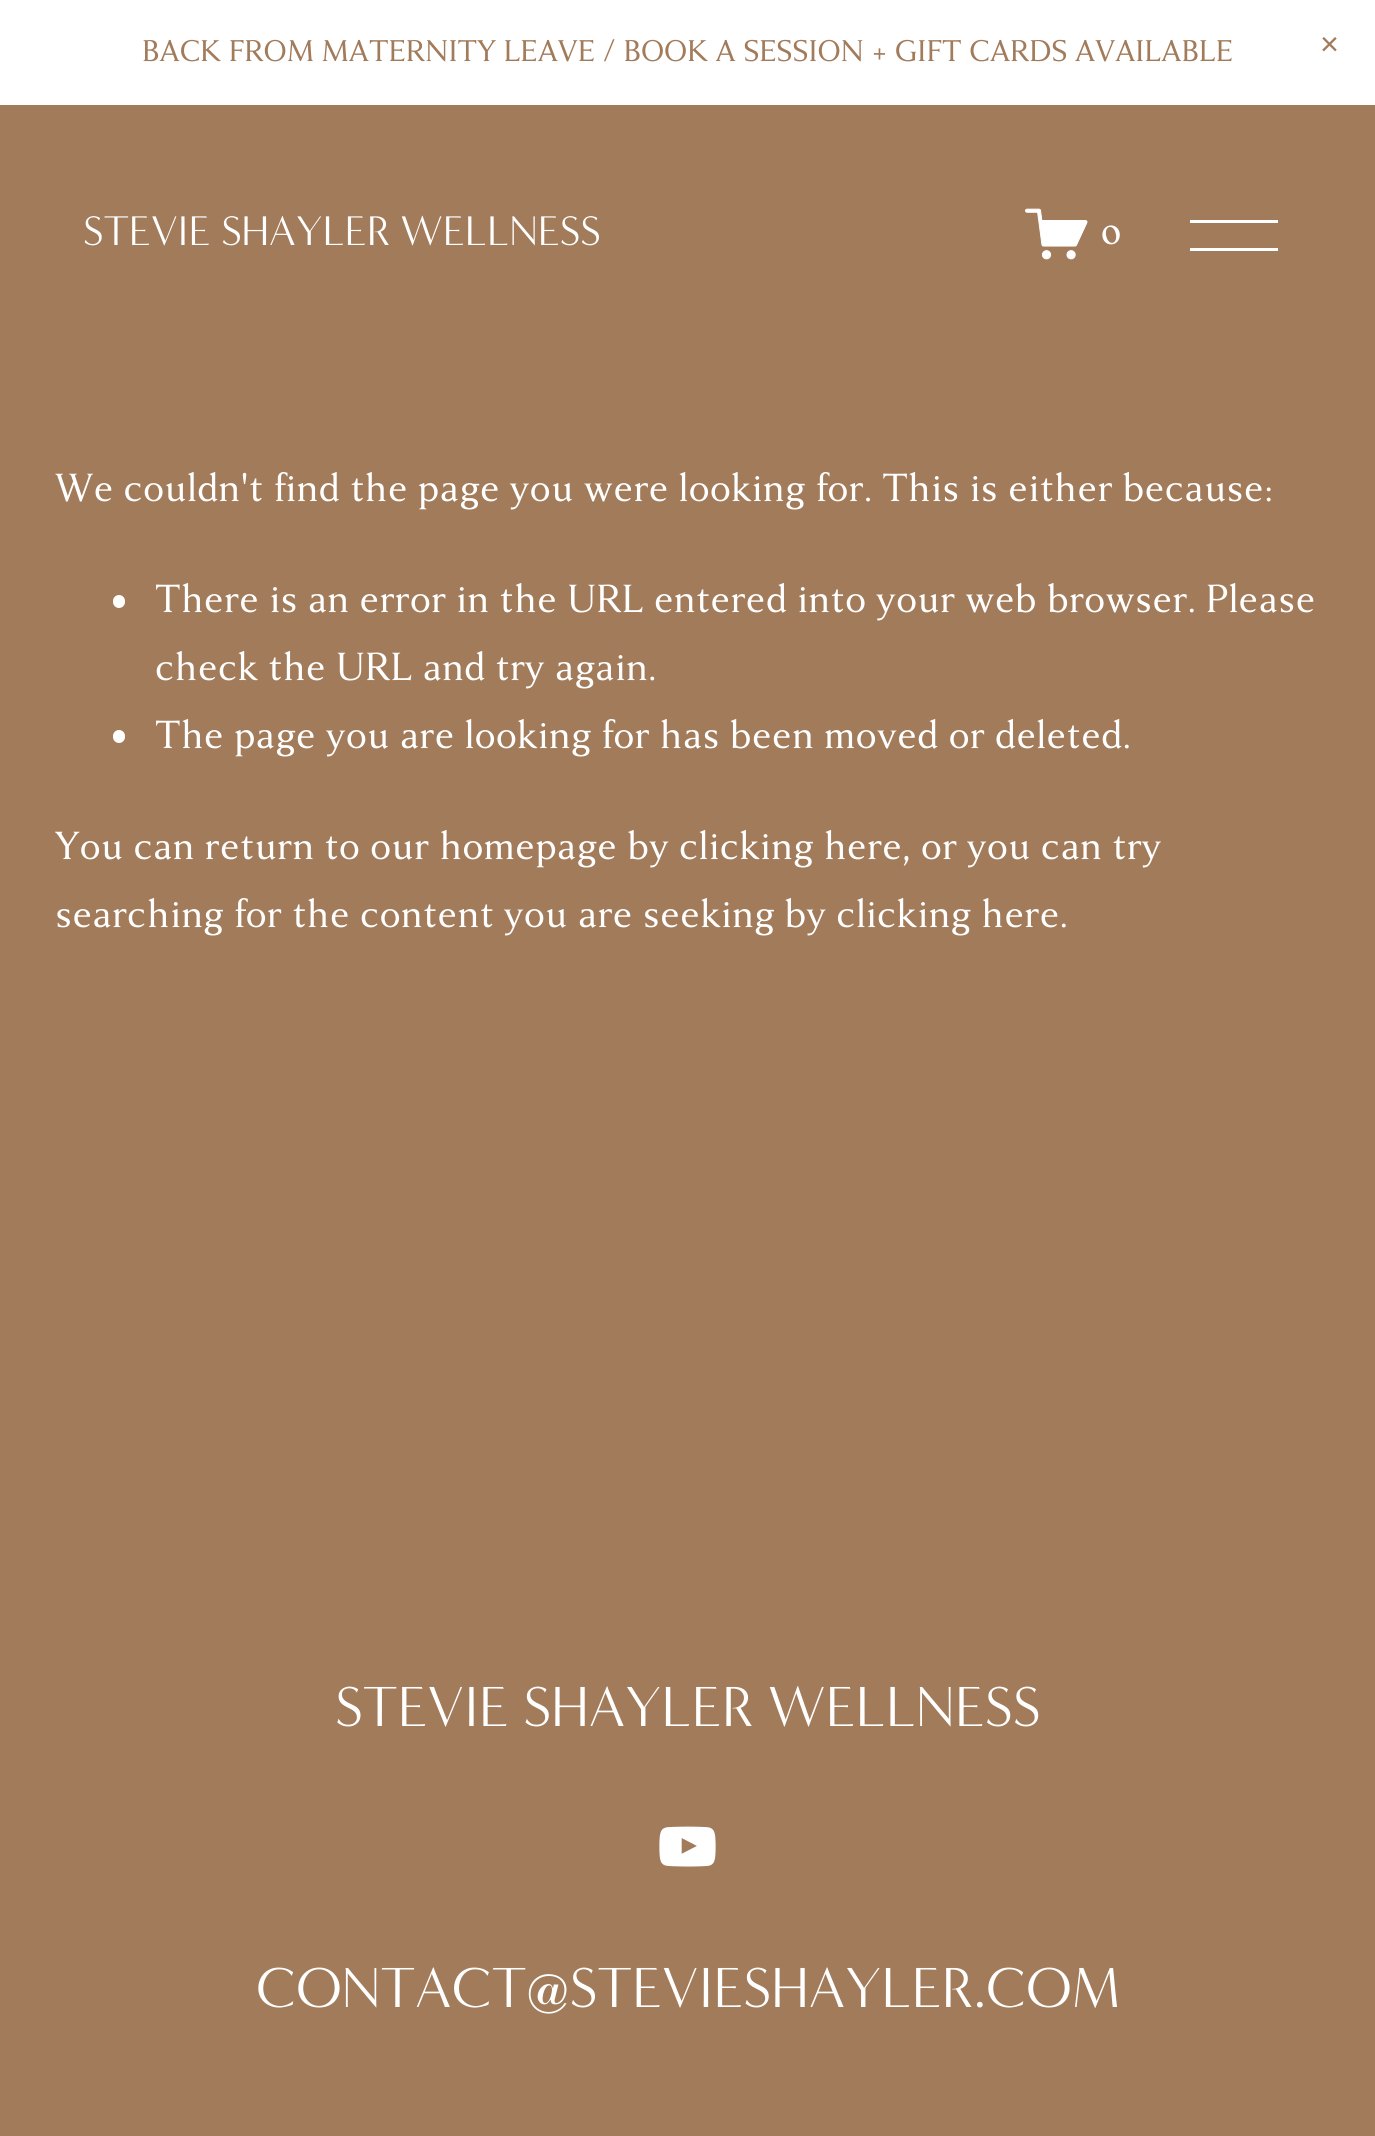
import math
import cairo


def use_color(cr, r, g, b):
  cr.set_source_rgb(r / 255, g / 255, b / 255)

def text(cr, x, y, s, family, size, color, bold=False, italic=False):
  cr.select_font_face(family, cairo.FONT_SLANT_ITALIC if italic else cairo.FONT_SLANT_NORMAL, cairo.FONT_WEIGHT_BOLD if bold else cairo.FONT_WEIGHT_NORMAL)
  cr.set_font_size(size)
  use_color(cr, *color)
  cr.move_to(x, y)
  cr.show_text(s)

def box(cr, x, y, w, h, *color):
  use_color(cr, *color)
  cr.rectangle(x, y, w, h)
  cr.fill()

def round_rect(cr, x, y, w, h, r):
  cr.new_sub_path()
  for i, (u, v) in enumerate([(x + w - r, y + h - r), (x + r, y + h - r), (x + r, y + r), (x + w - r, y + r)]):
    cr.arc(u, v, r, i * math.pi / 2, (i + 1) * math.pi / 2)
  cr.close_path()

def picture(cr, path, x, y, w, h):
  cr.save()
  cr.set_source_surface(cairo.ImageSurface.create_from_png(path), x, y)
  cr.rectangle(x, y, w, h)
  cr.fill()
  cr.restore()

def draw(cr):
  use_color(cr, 162, 123, 91)
  cr.paint()
  box(cr, 0, 0, 1375, 105, 255, 255, 255)
  picture(cr, "img_01.png", 1025, 208, 63, 52)
  box(cr, 1190, 220, 88, 3, 255, 255, 255)
  box(cr, 1190, 248, 88, 3, 255, 255, 255)
  round_rect(cr, 113, 595, 12, 13, 6)
  cr.fill()
  round_rect(cr, 113, 730, 12, 13, 6)
  cr.fill()
  picture(cr, "img_02.png", 659, 1826, 57, 41)
  text(cr, 142, 61, "BACK FROM MATERNITY LEAVE / BOOK A SESSION + GIFT CARDS AVAILABLE", "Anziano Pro", 32.5, (162, 123, 91))
  text(cr, 1320, 55, "×", "Liberation Sans", 32.5, (162, 123, 91))
  text(cr, 83, 245, "STEVIE SHAYLER WELLNESS", "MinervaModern", 42.55, (255, 255, 255))
  text(cr, 1100, 244, "0", "Anziano Pro", 42.55, (255, 255, 255))
  text(cr, 55, 501, "We couldn't find the page you were looking for. This is either because:", "Anziano Pro", 42.55, (255, 255, 255))
  text(cr, 155, 612, "There is an error in the URL entered into your web browser. Please", "Anziano Pro", 42.55, (255, 255, 255))
  text(cr, 155, 680, "check the URL and try again.", "Anziano Pro", 42.55, (255, 255, 255))
  text(cr, 155, 748, "The page you are looking for has been moved or deleted.", "Anziano Pro", 42.55, (255, 255, 255))
  text(cr, 55, 859, "You can return to our homepage by", "Anziano Pro", 42.55, (255, 255, 255))
  text(cr, 679, 859, "clicking here, or you can try", "Anziano Pro", 42.55, (255, 255, 255))
  text(cr, 55, 927, "searching for the content you are seeking by clicking here.", "Anziano Pro", 42.55, (255, 255, 255))
  text(cr, 335, 1726, "STEVIE SHAYLER WELLNESS", "MinervaModern", 58, (255, 255, 255))
  text(cr, 256, 2007, "CONTACT@STEVIESHAYLER.COM", "MinervaModern", 58, (255, 255, 255))


surface = cairo.ImageSurface(cairo.FORMAT_RGB24, 1375, 2136)
cr = cairo.Context(surface)
options = cairo.FontOptions()
options.set_hint_metrics(cairo.HINT_METRICS_OFF)
options.set_hint_style(cairo.HINT_STYLE_NONE)
cr.set_font_options(options)
cr.set_miter_limit(4)
draw(cr)
surface.write_to_png("out.png")
